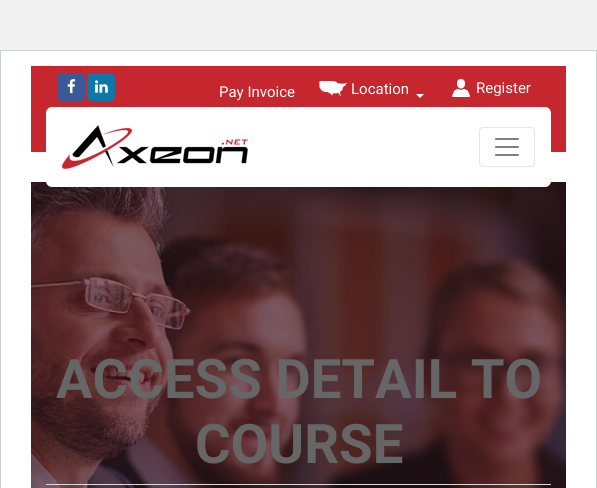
import math
import cairo


def use_color(cr, r, g, b):
  cr.set_source_rgb(r / 255, g / 255, b / 255)

def text(cr, x, y, s, family, size, color, bold=False, italic=False):
  cr.select_font_face(family, cairo.FONT_SLANT_ITALIC if italic else cairo.FONT_SLANT_NORMAL, cairo.FONT_WEIGHT_BOLD if bold else cairo.FONT_WEIGHT_NORMAL)
  cr.set_font_size(size)
  use_color(cr, *color)
  cr.move_to(x, y)
  cr.show_text(s)

def box(cr, x, y, w, h, *color):
  use_color(cr, *color)
  cr.rectangle(x, y, w, h)
  cr.fill()

def round_rect(cr, x, y, w, h, r):
  cr.new_sub_path()
  for i, (u, v) in enumerate([(x + w - r, y + h - r), (x + r, y + h - r), (x + r, y + r), (x + w - r, y + r)]):
    cr.arc(u, v, r, i * math.pi / 2, (i + 1) * math.pi / 2)
  cr.close_path()

def picture(cr, path, x, y, w, h):
  cr.save()
  cr.set_source_surface(cairo.ImageSurface.create_from_png(path), x, y)
  cr.rectangle(x, y, w, h)
  cr.fill()
  cr.restore()

def draw(cr):
  use_color(cr, 241, 241, 241)
  cr.paint()
  use_color(cr, 255, 255, 255)
  cr.rectangle(0.5, 50.5, 596, 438)
  cr.fill_preserve()
  use_color(cr, 204, 208, 212)
  cr.set_line_width(1)
  cr.stroke()
  box(cr, 31, 66, 535, 86, 198, 38, 46)
  use_color(cr, 59, 89, 152)
  round_rect(cr, 57, 73, 28, 28, 5)
  cr.fill()
  picture(cr, "img_01.png", 67, 79, 9, 15)
  use_color(cr, 14, 118, 168)
  round_rect(cr, 87, 73, 28, 28, 5)
  cr.fill()
  picture(cr, "img_02.png", 95, 80, 13, 13)
  picture(cr, "img_03.png", 319, 81, 28, 15)
  use_color(cr, 255, 255, 255)
  cr.new_path()
  cr.move_to(416, 94)
  cr.line_to(424, 94)
  cr.line_to(420, 98)
  cr.close_path()
  cr.fill()
  picture(cr, "img_04.png", 452, 79, 18, 18)
  picture(cr, "img_07.png", 31, 182, 535, 306)
  round_rect(cr, 46, 107, 505, 80, 6)
  cr.fill()
  picture(cr, "img_05.png", 62, 125, 186, 44)
  round_rect(cr, 479.5, 127.5, 55, 39, 3.5)
  use_color(cr, 230, 230, 230)
  cr.stroke()
  picture(cr, "img_06.png", 495, 138, 24, 18)
  box(cr, 46, 484, 505, 1, 218, 218, 218)
  text(cr, 219, 97, "Pay Invoice", "Roboto", 15, (255, 255, 255))
  text(cr, 351, 94, "Location", "Roboto", 15, (255, 255, 255))
  text(cr, 476, 93, "Register", "Roboto", 15, (255, 255, 255))
  text(cr, 56, 398, "ACCESS DETAIL TO", "Roboto", 54.5, (102, 102, 102), bold=True)
  text(cr, 195, 463, "COURSE", "Roboto", 54.5, (102, 102, 102), bold=True)


surface = cairo.ImageSurface(cairo.FORMAT_RGB24, 597, 488)
cr = cairo.Context(surface)
options = cairo.FontOptions()
options.set_hint_metrics(cairo.HINT_METRICS_OFF)
options.set_hint_style(cairo.HINT_STYLE_NONE)
cr.set_font_options(options)
cr.set_miter_limit(4)
draw(cr)
surface.write_to_png("out.png")
